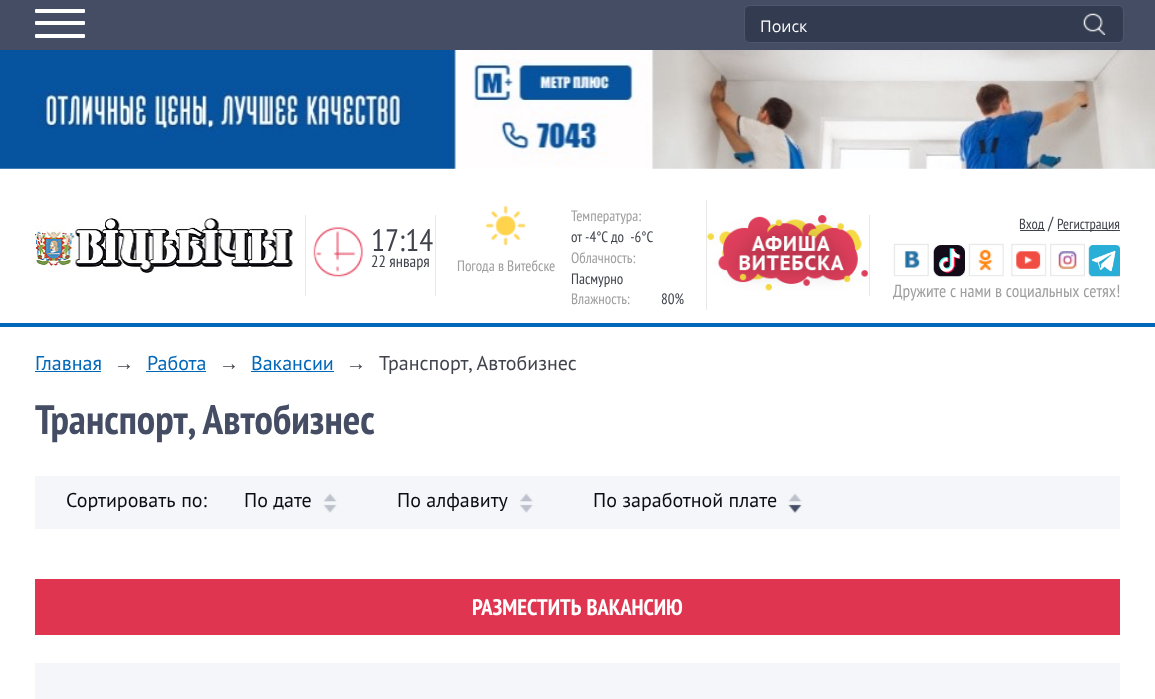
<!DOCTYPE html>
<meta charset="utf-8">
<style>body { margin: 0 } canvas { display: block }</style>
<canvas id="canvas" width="1155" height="699"></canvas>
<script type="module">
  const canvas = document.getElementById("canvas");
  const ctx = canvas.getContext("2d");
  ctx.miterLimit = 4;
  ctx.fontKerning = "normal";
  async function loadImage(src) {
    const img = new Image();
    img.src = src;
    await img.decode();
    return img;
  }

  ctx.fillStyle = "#ffffff";
  ctx.fillRect(0, 0, 1155, 699);
  ctx.fillStyle = "#444d64";
  ctx.fillRect(0, 0, 1155, 50);
  ctx.fillStyle = "#ffffff";
  ctx.beginPath();
  ctx.roundRect(35, 9, 50, 4, 1);
  ctx.fill();
  ctx.beginPath();
  ctx.roundRect(35, 21, 50, 4, 1);
  ctx.fill();
  ctx.beginPath();
  ctx.roundRect(35, 34, 50, 4, 1);
  ctx.fill();
  ctx.fillStyle = "#323b4f";
  ctx.beginPath();
  ctx.roundRect(744.5, 5.5, 379, 37, 5.5);
  ctx.fill();
  ctx.strokeStyle = "#4c566e";
  ctx.stroke();
  ctx.font = "16px Open Sans";
  ctx.fillStyle = "#ffffff";
  ctx.fillText("Поиск", 760, 32);
  ctx.drawImage(await loadImage("img1.png"), 1083, 13, 23, 22);
  ctx.fillStyle = "#0067b9";
  ctx.fillRect(0, 323, 1155, 4);
  ctx.fillStyle = "#e8e8e8";
  ctx.fillRect(305, 215, 1, 81);
  ctx.drawImage(await loadImage("img2.png"), 35, 218, 258, 55);
  ctx.fillRect(435, 215, 1, 81);
  ctx.drawImage(await loadImage("img3.png"), 313, 227, 50, 50);
  ctx.font = "31px PT Sans Narrow";
  ctx.fillStyle = "#40434c";
  ctx.fillText("17:14", 371, 251);
  ctx.font = "16.5px PT Sans Narrow";
  ctx.fillText("22 января", 371, 267);
  ctx.fillStyle = "#e8e8e8";
  ctx.fillRect(706, 200, 1, 110);
  ctx.drawImage(await loadImage("img4.png"), 486, 206, 39, 39);
  ctx.font = "15px PT Sans Narrow";
  ctx.fillStyle = "#9e9e9f";
  ctx.fillText("Погода в Витебске", 457, 271);
  ctx.fillText("Температура:", 571, 221);
  ctx.fillStyle = "#40434c";
  ctx.fillText("от -4°C до  -6°C", 571, 242);
  ctx.fillStyle = "#9e9e9f";
  ctx.fillText("Облачность:", 571, 263);
  ctx.fillStyle = "#40434c";
  ctx.fillText("Пасмурно", 571, 284);
  ctx.fillStyle = "#9e9e9f";
  ctx.fillText("Влажность:", 571, 304);
  ctx.fillStyle = "#40434c";
  ctx.fillText("80%", 661, 304);
  ctx.fillStyle = "#e8e8e8";
  ctx.fillRect(869, 215, 1, 81);
  ctx.drawImage(await loadImage("img5.png"), 707, 215, 162, 76);
  ctx.fillStyle = "#40434c";
  ctx.fillRect(1020, 230, 25, 1);
  ctx.font = "14.5px PT Sans Narrow";
  ctx.fillText("Вход", 1019, 229);
  ctx.font = "17.5px PT Sans Narrow";
  ctx.fillText("/", 1048, 229);
  ctx.fillRect(1058, 230, 62, 1);
  ctx.font = "14.5px PT Sans Narrow";
  ctx.fillText("Регистрация", 1057, 229);
  ctx.drawImage(await loadImage("img6.png"), 893, 243, 36, 34);
  ctx.drawImage(await loadImage("img7.png"), 933, 245, 32, 32);
  ctx.drawImage(await loadImage("img8.png"), 968, 243, 36, 34);
  ctx.drawImage(await loadImage("img9.png"), 1011, 243, 36, 34);
  ctx.drawImage(await loadImage("img10.png"), 1050, 243, 35, 34);
  ctx.drawImage(await loadImage("img11.png"), 1088, 245, 32, 32);
  ctx.font = "17.5px PT Sans Narrow";
  ctx.fillStyle = "#9e9e9f";
  ctx.fillText("Дружите с нами в социальных сетях!", 893, 297);
  ctx.drawImage(await loadImage("img12.png"), 0, 50, 1155, 119);
  ctx.font = "20px PT Sans";
  ctx.fillStyle = "#0067b9";
  ctx.fillText("Главная", 35, 370);
  ctx.fillRect(35, 371, 66, 1);
  ctx.font = "20px Liberation Sans";
  ctx.fillStyle = "#40434c";
  ctx.fillText("→", 114, 370);
  ctx.font = "20px PT Sans";
  ctx.fillStyle = "#0067b9";
  ctx.fillText("Работа", 147, 370);
  ctx.fillRect(146, 371, 60, 1);
  ctx.font = "20px Liberation Sans";
  ctx.fillStyle = "#40434c";
  ctx.fillText("→", 219, 370);
  ctx.font = "20px PT Sans";
  ctx.fillStyle = "#0067b9";
  ctx.fillText("Вакансии", 251, 370);
  ctx.fillRect(251, 371, 83, 1);
  ctx.font = "20px Liberation Sans";
  ctx.fillStyle = "#40434c";
  ctx.fillText("→", 346, 370);
  ctx.wordSpacing = "-1px";
  ctx.font = "20px PT Sans";
  ctx.fillText("Транспорт, Автобизнес", 379, 370);
  ctx.font = "bold 41.25px PT Sans Narrow";
  ctx.fillStyle = "#444d64";
  ctx.fillText("Транспорт, Автобизнес", 35, 434);
  ctx.fillStyle = "#f4f6f9";
  ctx.fillRect(35, 476, 1085, 53);
  ctx.wordSpacing = "1px";
  ctx.font = "20px PT Sans";
  ctx.fillStyle = "#090d13";
  ctx.fillText("Сортировать по:", 66, 507);
  ctx.wordSpacing = "0px";
  ctx.fillText("По дате", 244, 507);
  ctx.drawImage(await loadImage("img13.png"), 323, 493, 14, 20);
  ctx.fillText("По алфавиту", 397, 507);
  ctx.drawImage(await loadImage("img14.png"), 520, 493, 13, 20);
  ctx.fillText("По заработной плате", 593, 507);
  ctx.drawImage(await loadImage("img15.png"), 788, 493, 14, 20);
  ctx.fillStyle = "#df3551";
  ctx.fillRect(35, 579, 1085, 56);
  ctx.wordSpacing = "1px";
  ctx.font = "bold 22.5px PT Sans Narrow";
  ctx.fillStyle = "#ffffff";
  ctx.fillText("РАЗМЕСТИТЬ ВАКАНСИЮ", 472, 615);
  ctx.fillStyle = "#f4f6f9";
  ctx.fillRect(35, 663, 1085, 36);
</script>
